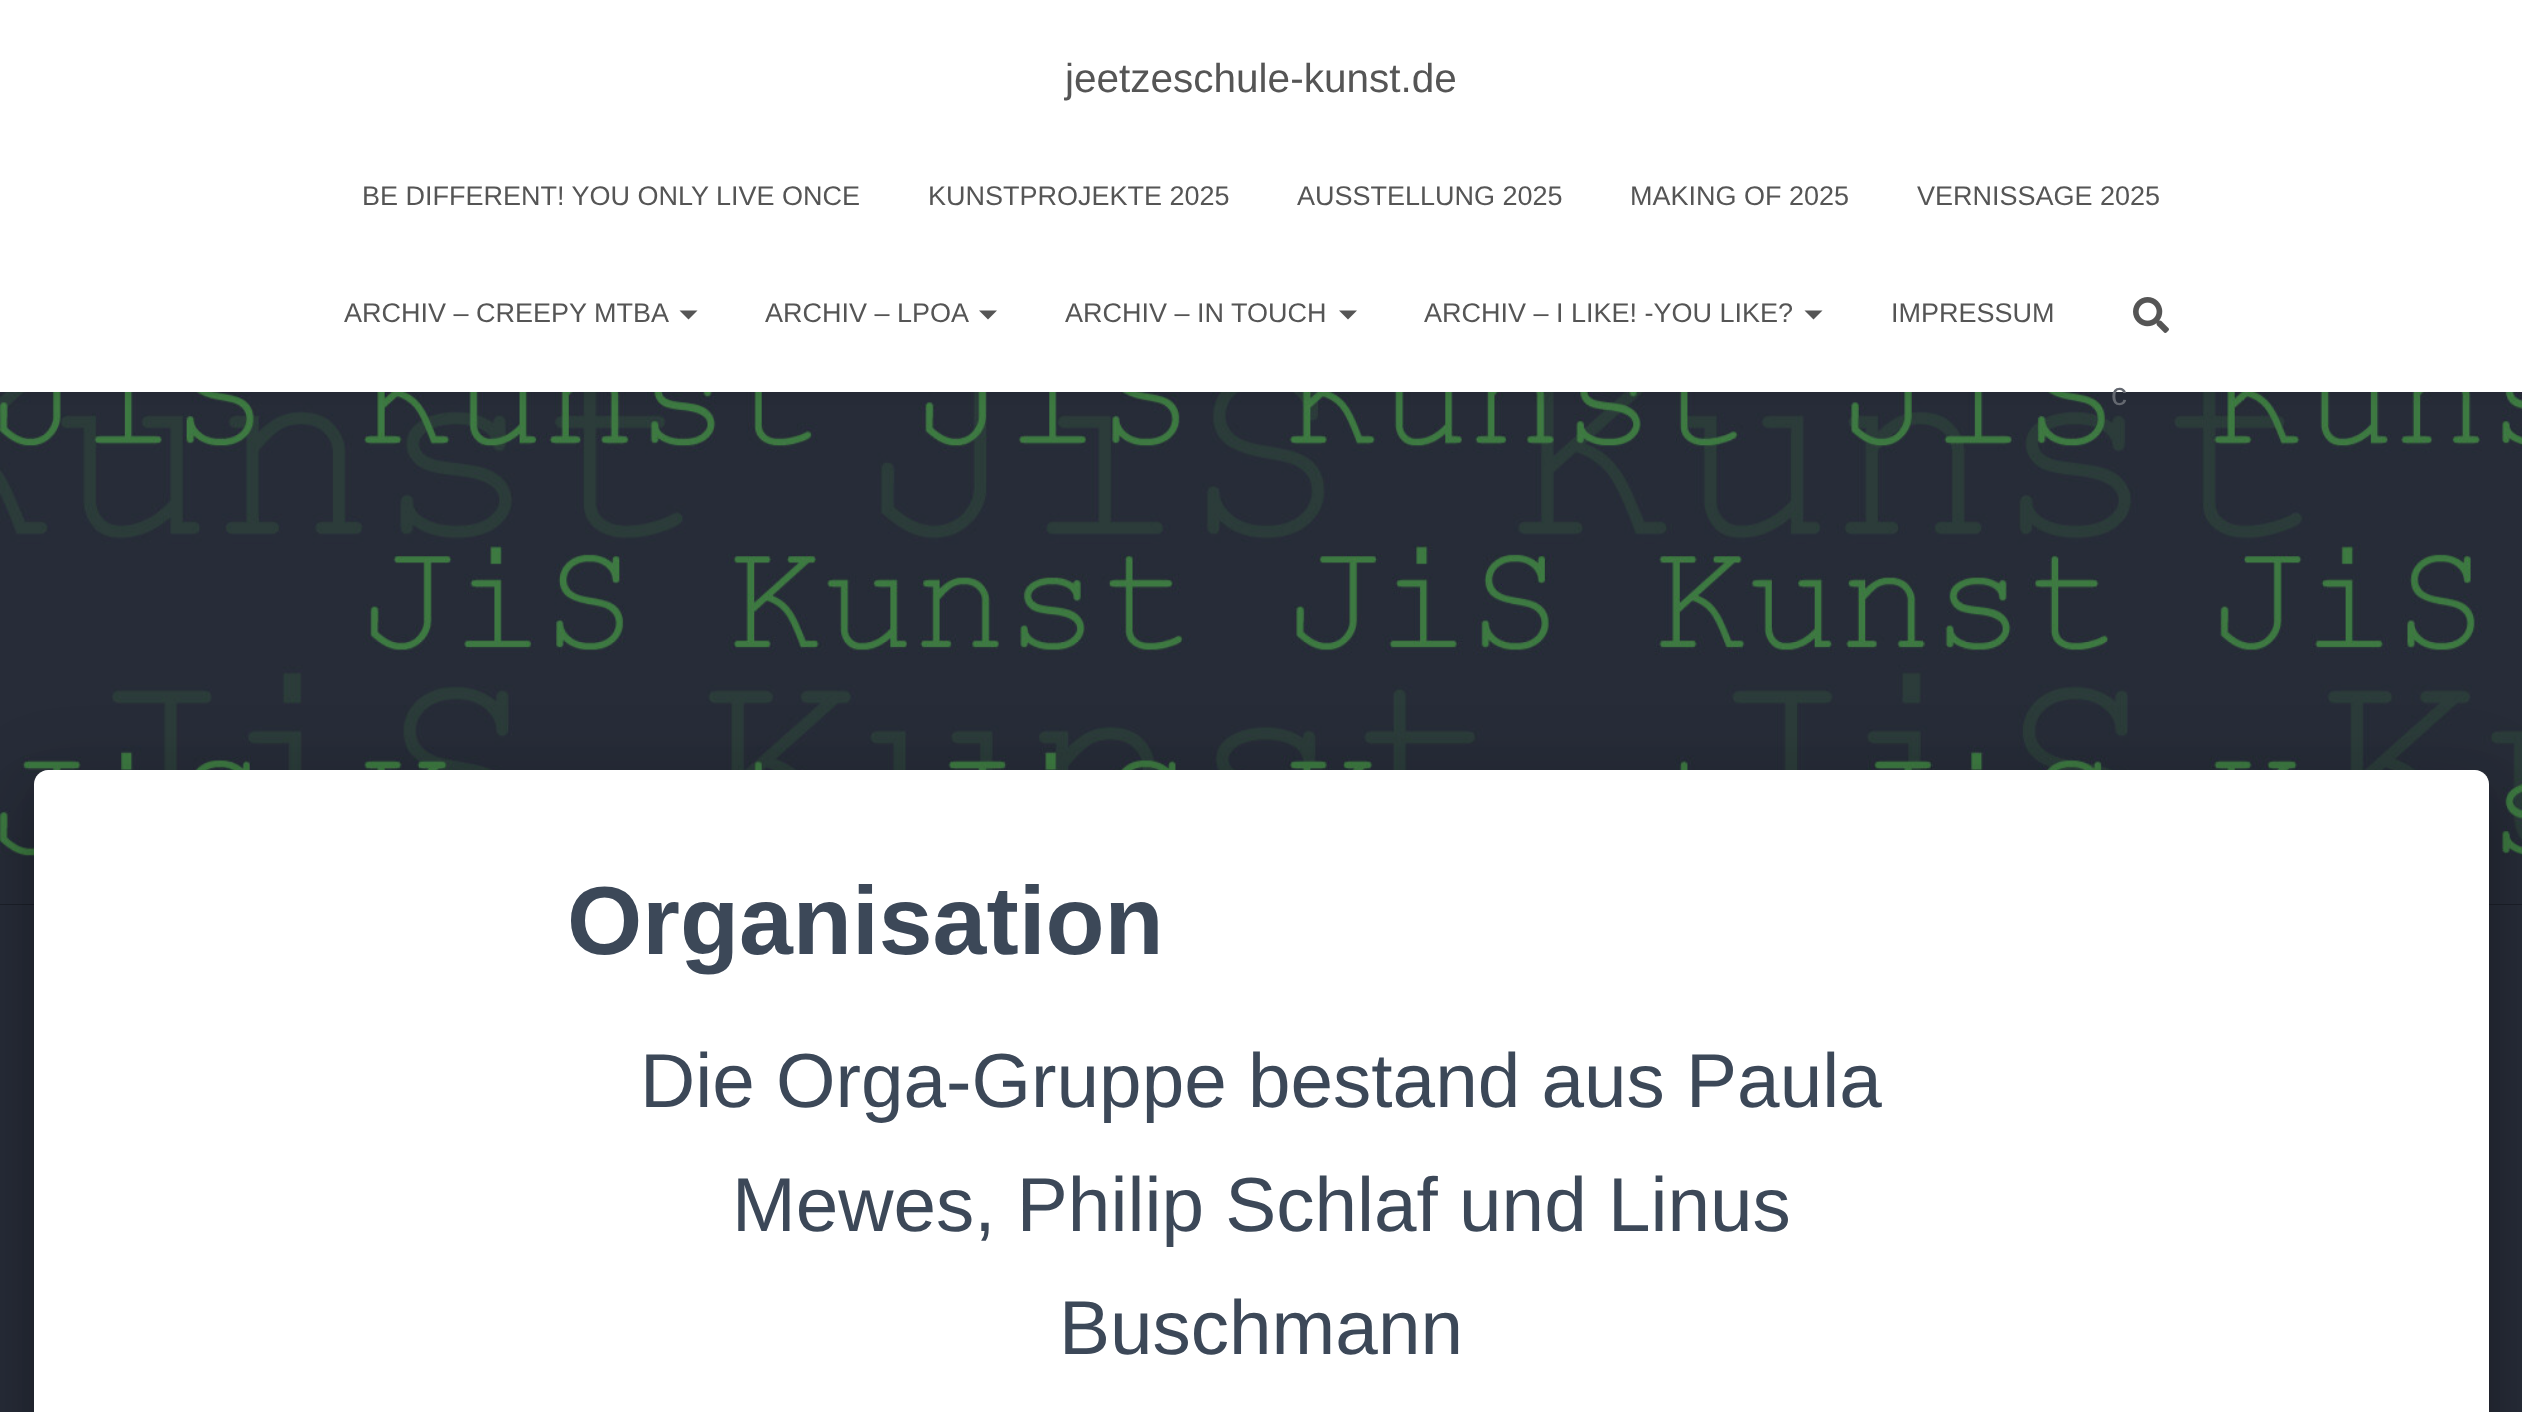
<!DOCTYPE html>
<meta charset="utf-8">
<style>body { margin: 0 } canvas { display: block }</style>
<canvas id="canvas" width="2522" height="1412"></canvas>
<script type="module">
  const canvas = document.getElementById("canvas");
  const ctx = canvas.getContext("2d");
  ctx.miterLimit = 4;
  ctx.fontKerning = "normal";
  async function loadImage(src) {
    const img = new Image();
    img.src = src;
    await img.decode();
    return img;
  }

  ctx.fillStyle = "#272c38";
  ctx.fillRect(0, 0, 2522, 1412);
  ctx.fillStyle = "#14161c";
  ctx.fillRect(0, 904, 2522, 1);
  ctx.drawImage(await loadImage("img2.png"), 0, 392, 2522, 513);
  ctx.fillStyle = "rgba(0, 0, 0, 0.42)";
  ctx.filter = "blur(11px)";
  ctx.beginPath();
  ctx.rect(14, 16, 2495, 364);
  ctx.fill();
  ctx.filter = "none";
  ctx.fillStyle = "#ffffff";
  ctx.fillRect(0, 0, 2522, 392);
  ctx.font = "40.5px Liberation Sans";
  ctx.fillStyle = "#555555";
  ctx.fillText("jeetzeschule-kunst.de", 1065, 92);
  ctx.font = "27px Liberation Sans";
  ctx.fillText("BE DIFFERENT! YOU ONLY LIVE ONCE", 362, 205);
  ctx.fillText("KUNSTPROJEKTE 2025", 928, 205);
  ctx.fillText("AUSSTELLUNG 2025", 1297, 205);
  ctx.fillText("MAKING OF 2025", 1630, 205);
  ctx.fillText("VERNISSAGE 2025", 1917, 205);
  ctx.fillText("ARCHIV – CREEPY MTBA", 344, 322);
  ctx.beginPath();
  ctx.moveTo(679.5, 310.5);
  ctx.lineTo(697.5, 310.5);
  ctx.lineTo(688.5, 319.5);
  ctx.closePath();
  ctx.fill();
  ctx.fillText("ARCHIV – LPOA", 765, 322);
  ctx.beginPath();
  ctx.moveTo(979, 310.5);
  ctx.lineTo(997, 310.5);
  ctx.lineTo(988, 319.5);
  ctx.closePath();
  ctx.fill();
  ctx.fillText("ARCHIV – IN TOUCH", 1065, 322);
  ctx.beginPath();
  ctx.moveTo(1339, 310.5);
  ctx.lineTo(1357, 310.5);
  ctx.lineTo(1348, 319.5);
  ctx.closePath();
  ctx.fill();
  ctx.fillText("ARCHIV – I LIKE! -YOU LIKE?", 1424, 322);
  ctx.beginPath();
  ctx.moveTo(1804.5, 310.5);
  ctx.lineTo(1822.5, 310.5);
  ctx.lineTo(1813.5, 319.5);
  ctx.closePath();
  ctx.fill();
  ctx.fillText("IMPRESSUM", 1891, 322);
  ctx.drawImage(await loadImage("img1.png"), 2133, 297, 36, 36);
  ctx.font = "32px Liberation Sans";
  ctx.fillStyle = "#646870";
  ctx.fillText("c", 2111, 405);
  ctx.fillStyle = "rgba(0, 0, 0, 0.2)";
  ctx.filter = "blur(11px)";
  ctx.beginPath();
  ctx.roundRect(45, 799, 2432, 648, 2);
  ctx.fill();
  ctx.filter = "none";
  ctx.fillStyle = "rgba(0, 0, 0, 0.12)";
  ctx.filter = "blur(34px)";
  ctx.beginPath();
  ctx.roundRect(23, 772, 2477, 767, 25);
  ctx.fill();
  ctx.filter = "none";
  ctx.fillStyle = "rgba(0, 0, 0, 0.14)";
  ctx.filter = "blur(27px)";
  ctx.beginPath();
  ctx.roundRect(29, 801, 2464, 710, 18);
  ctx.fill();
  ctx.filter = "none";
  ctx.fillStyle = "#ffffff";
  ctx.beginPath();
  ctx.moveTo(48, 770);
  ctx.lineTo(2475, 770);
  ctx.bezierCurveTo(2482.5, 770, 2489, 776.5, 2489, 784);
  ctx.lineTo(2489, 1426);
  ctx.lineTo(34, 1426);
  ctx.lineTo(34, 784);
  ctx.bezierCurveTo(34, 776.5, 40.5, 770, 48, 770);
  ctx.closePath();
  ctx.fill();
  ctx.font = "bold 96.75px Liberation Sans";
  ctx.fillStyle = "#3c4858";
  ctx.fillText("Organisation", 567, 954);
  ctx.font = "76.5px Liberation Sans";
  ctx.fillText("Die Orga-Gruppe bestand aus Paula", 640, 1107);
  ctx.fillText("Mewes, Philip Schlaf und Linus", 732, 1231);
  ctx.fillText("Buschmann", 1059, 1354);
</script>
